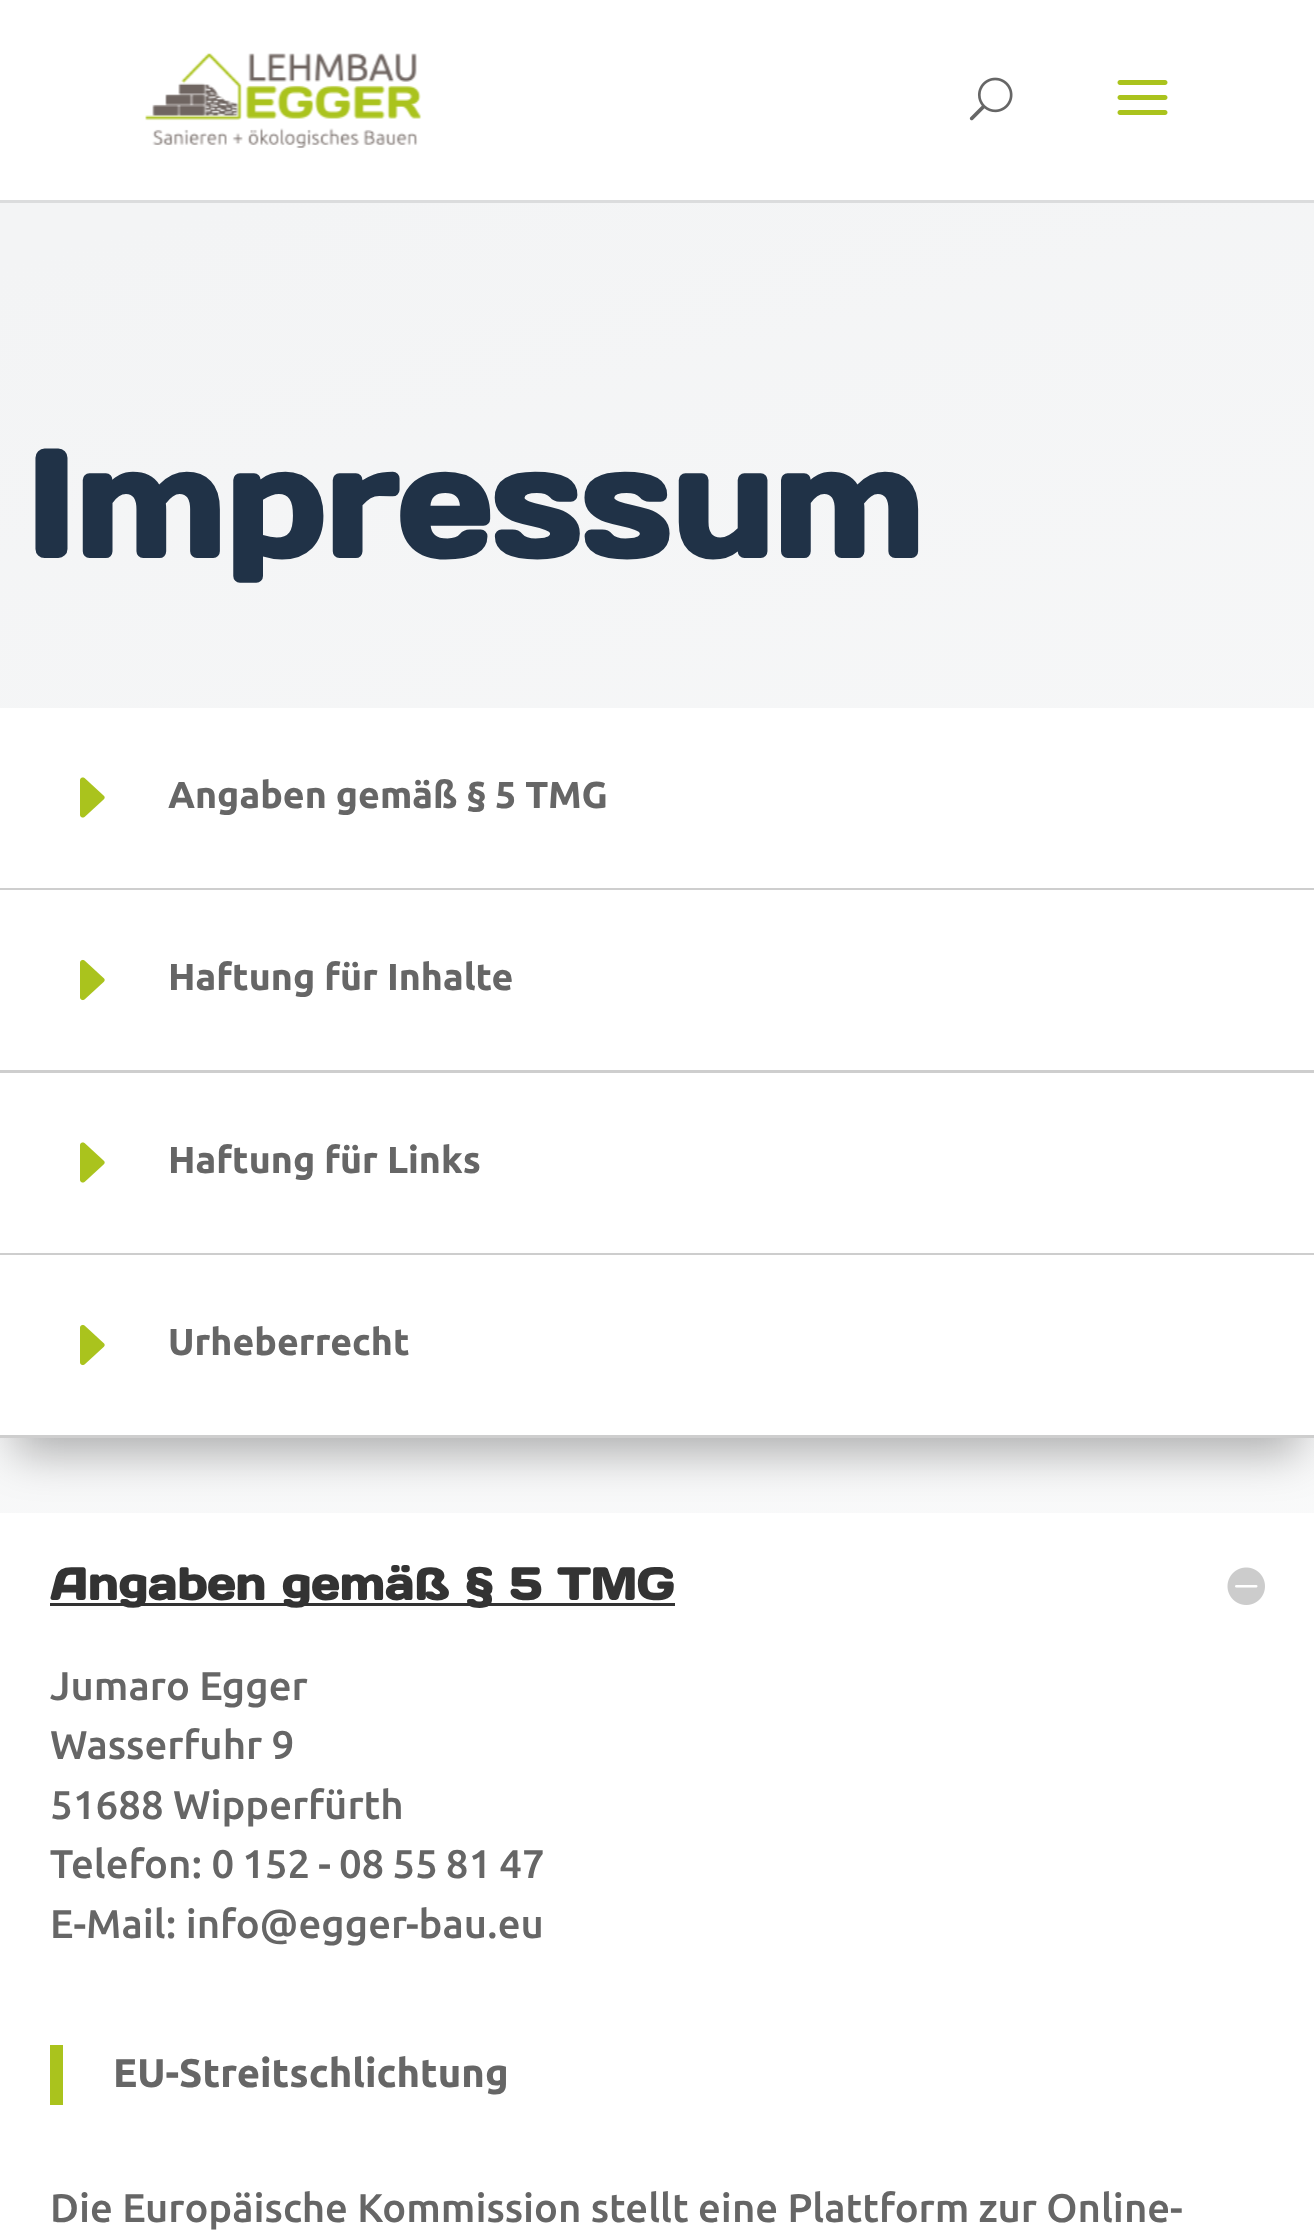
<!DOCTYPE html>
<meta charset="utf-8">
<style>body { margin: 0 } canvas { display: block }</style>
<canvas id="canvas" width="1314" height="2240"></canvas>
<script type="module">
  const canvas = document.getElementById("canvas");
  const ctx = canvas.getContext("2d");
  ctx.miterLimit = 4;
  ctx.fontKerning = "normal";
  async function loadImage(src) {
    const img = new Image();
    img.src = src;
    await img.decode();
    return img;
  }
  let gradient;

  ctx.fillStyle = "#ffffff";
  ctx.fillRect(0, 0, 1314, 2240);
  ctx.fillStyle = "#dbdcdd";
  ctx.fillRect(0, 200, 1314, 3);
  ctx.drawImage(await loadImage("img1.png"), 145, 53, 277, 95);
  ctx.drawImage(await loadImage("img2.png"), 969, 77, 44, 44);
  ctx.drawImage(await loadImage("img3.png"), 1117, 80, 51, 35);
  gradient = ctx.createLinearGradient(-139, 235, 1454, 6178);
  gradient.addColorStop(0.01, "#f3f4f5");
  gradient.addColorStop(0.54, "#ffffff");
  ctx.fillStyle = gradient;
  ctx.fillRect(0, 203, 1314, 1310);
  ctx.font = "bold 150px Days One";
  ctx.fillStyle = "#203247";
  ctx.fillText("Impressum", 25, 558);
  ctx.fillStyle = "#ffffff";
  ctx.fillRect(0, 708, 1314, 362);
  ctx.fillStyle = "rgba(51, 51, 51, 0.24)";
  ctx.fillRect(0, 888, 1314, 2);
  ctx.drawImage(await loadImage("img4.png"), 80, 777, 25, 41);
  ctx.font = "bold 37.5px Ubuntu";
  ctx.fillStyle = "#666666";
  ctx.fillText("Angaben gemäß § 5 TMG", 168, 808);
  ctx.fillStyle = "#cecece";
  ctx.fillRect(0, 1070, 1314, 3);
  ctx.drawImage(await loadImage("img5.png"), 80, 959, 25, 42);
  ctx.fillStyle = "#666666";
  ctx.fillText("Haftung für Inhalte", 168, 990);
  ctx.fillStyle = "#ffffff";
  ctx.fillRect(0, 1073, 1314, 182);
  ctx.fillStyle = "rgba(51, 51, 51, 0.24)";
  ctx.fillRect(0, 1253, 1314, 2);
  ctx.drawImage(await loadImage("img4.png"), 80, 1142, 25, 41);
  ctx.fillStyle = "#666666";
  ctx.fillText("Haftung für Links", 168, 1173);
  ctx.fillStyle = "rgba(0, 0, 0, 0.3)";
  ctx.filter = "blur(22.5px)";
  ctx.beginPath();
  ctx.rect(15, 1300, 1285, 153);
  ctx.fill();
  ctx.filter = "none";
  ctx.fillStyle = "#ffffff";
  ctx.fillRect(0, 1255, 1314, 180);
  ctx.fillStyle = "#cecece";
  ctx.fillRect(0, 1435, 1314, 3);
  ctx.drawImage(await loadImage("img5.png"), 80, 1324, 25, 42);
  ctx.fillStyle = "#666666";
  ctx.fillText("Urheberrecht", 168, 1355);
  ctx.fillStyle = "#333333";
  ctx.fillRect(50, 1603, 625, 3);
  ctx.font = "bold 45px Days One";
  ctx.fillText("Angaben gemäß § 5 TMG", 50, 1600);
  ctx.drawImage(await loadImage("img6.png"), 1227, 1567, 38, 38);
  ctx.font = "500 40px Ubuntu";
  ctx.fillStyle = "#666666";
  ctx.fillText("Jumaro Egger", 50, 1700);
  ctx.fillText("Wasserfuhr 9", 50, 1759);
  ctx.fillText("51688 Wipperfürth", 50, 1819);
  ctx.fillText("Telefon: 0 152 - 08 55 81 47", 50, 1878);
  ctx.fillText("E-Mail: info@egger-bau.eu", 50, 1938);
  ctx.fillStyle = "#aac31d";
  ctx.fillRect(50, 2045, 13, 60);
  ctx.font = "bold 40px Ubuntu";
  ctx.fillStyle = "#666666";
  ctx.fillText("EU-Streitschlichtung", 113, 2087);
  ctx.font = "500 40px Ubuntu";
  ctx.fillText("Die Europäische Kommission stellt eine Plattform zur Online-", 50, 2222);
</script>
